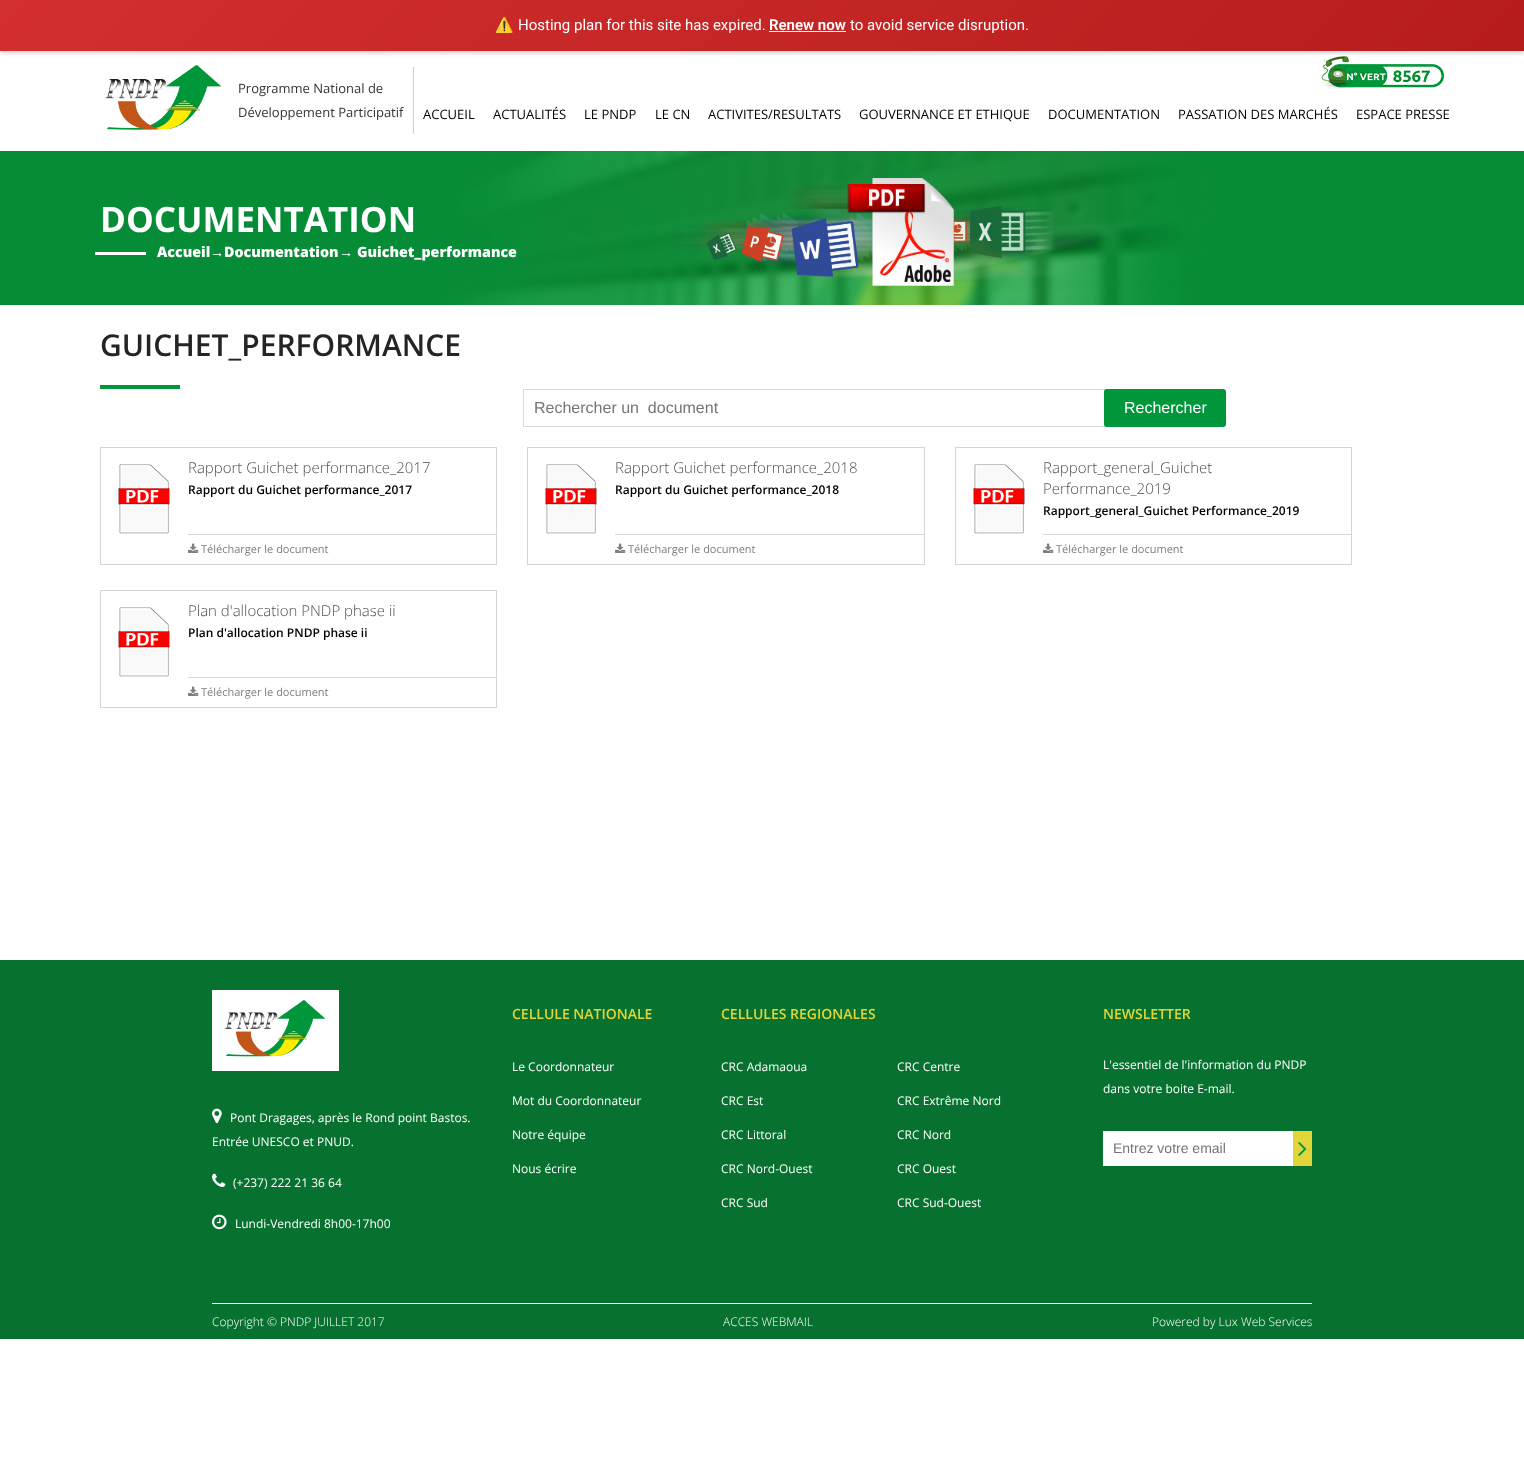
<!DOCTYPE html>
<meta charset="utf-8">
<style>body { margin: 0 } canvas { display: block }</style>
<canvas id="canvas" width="1524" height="1481"></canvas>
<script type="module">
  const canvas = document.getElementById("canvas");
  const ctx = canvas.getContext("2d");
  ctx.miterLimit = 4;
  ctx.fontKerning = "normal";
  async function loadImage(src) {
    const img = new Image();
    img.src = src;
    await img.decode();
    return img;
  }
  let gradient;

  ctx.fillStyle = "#ffffff";
  ctx.fillRect(0, 0, 1524, 1481);
  ctx.drawImage(await loadImage("img2.png"), 1321, 56, 123, 33);
  ctx.fillStyle = "rgba(0, 0, 0, 0.2)";
  ctx.filter = "blur(2px)";
  ctx.beginPath();
  ctx.rect(0, 2, 1524, 51);
  ctx.fill();
  ctx.filter = "none";
  gradient = ctx.createLinearGradient(368, -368, 1156, 419);
  gradient.addColorStop(0, "#d32f2f");
  gradient.addColorStop(1, "#b71c1c");
  ctx.fillStyle = gradient;
  ctx.fillRect(0, 0, 1524, 51);
  ctx.font = "15px Noto Color Emoji";
  ctx.fillStyle = "#ffffff";
  ctx.fillText("⚠️", 495, 30);
  ctx.font = "15px Roboto";
  ctx.fillText("Hosting plan for this site has expired.", 518, 30);
  ctx.font = "600 15px Roboto";
  ctx.fillText("Renew now", 769, 30);
  ctx.fillRect(769, 31, 77, 1);
  ctx.font = "15px Roboto";
  ctx.fillText("to avoid service disruption.", 850, 30);
  ctx.drawImage(await loadImage("img1.png"), 105, 64, 116, 66);
  ctx.fillStyle = "#cccccc";
  ctx.fillRect(413, 67, 1, 67);
  ctx.font = "13px Open Sans";
  ctx.fillStyle = "#333333";
  ctx.fillText("Programme National de", 238, 93);
  ctx.fillText("Développement Participatif", 238, 117);
  ctx.fillStyle = "#000000";
  ctx.fillText("ACCUEIL", 423, 119);
  ctx.fillText("ACTUALITÉS", 493, 119);
  ctx.fillText("LE PNDP", 584, 119);
  ctx.fillText("LE CN", 655, 119);
  ctx.fillText("ACTIVITES/RESULTATS", 708, 119);
  ctx.fillText("GOUVERNANCE ET ETHIQUE", 859, 119);
  ctx.fillText("DOCUMENTATION", 1048, 119);
  ctx.fillText("PASSATION DES MARCHÉS", 1178, 119);
  ctx.fillText("ESPACE PRESSE", 1356, 119);
  ctx.drawImage(await loadImage("img3.png"), 0, 151, 1524, 154);
  ctx.font = "bold 35px Open Sans";
  ctx.fillStyle = "#ffffff";
  ctx.fillText("DOCUMENTATION", 100, 232);
  ctx.fillRect(95, 252, 51, 3);
  ctx.font = "800 14.25px Open Sans";
  ctx.fillText("Accueil", 157, 257);
  ctx.font = "bold 14.25px Liberation Sans";
  ctx.fillText("→", 210, 257);
  ctx.font = "800 14.25px Open Sans";
  ctx.fillText("Documentation", 224, 257);
  ctx.font = "bold 14.25px Liberation Sans";
  ctx.fillText("→", 339, 257);
  ctx.font = "800 14.25px Open Sans";
  ctx.fillText("Guichet_performance", 357, 257);
  ctx.font = "600 30px Open Sans";
  ctx.fillStyle = "#242424";
  ctx.fillText("GUICHET_PERFORMANCE", 100, 356);
  ctx.fillStyle = "#00973a";
  ctx.fillRect(100, 385, 80, 4);
  ctx.strokeStyle = "#d8d8d8";
  ctx.strokeRect(523.5, 389.5, 584, 37);
  ctx.font = "16px Liberation Sans";
  ctx.fillStyle = "#757575";
  ctx.fillText("Rechercher un  document", 534, 413);
  ctx.fillStyle = "#00973a";
  ctx.beginPath();
  ctx.roundRect(1104, 389, 122, 38, 3);
  ctx.fill();
  ctx.fillStyle = "#ffffff";
  ctx.fillText("Rechercher", 1124, 413);
  ctx.strokeStyle = "#d5d5d5";
  ctx.strokeRect(100.5, 447.5, 396, 117);
  ctx.drawImage(await loadImage("img4.png"), 118, 464, 52, 70);
  ctx.font = "300 15px Open Sans";
  ctx.fillStyle = "#4f4f4f";
  ctx.fillText("Rapport Guichet performance_2017", 188, 473);
  ctx.font = "600 12px Open Sans";
  ctx.fillStyle = "#000000";
  ctx.fillText("Rapport du Guichet performance_2017", 188, 494);
  ctx.fillStyle = "#d8d8d8";
  ctx.fillRect(188, 534, 309, 1);
  ctx.drawImage(await loadImage("img5.png"), 188, 543, 11, 10);
  ctx.font = "11px Open Sans";
  ctx.fillStyle = "#7e7e7e";
  ctx.fillText("Télécharger le document", 201, 553);
  ctx.strokeRect(527.5, 447.5, 397, 117);
  ctx.drawImage(await loadImage("img4.png"), 545, 464, 52, 70);
  ctx.font = "300 15px Open Sans";
  ctx.fillStyle = "#4f4f4f";
  ctx.fillText("Rapport Guichet performance_2018", 615, 473);
  ctx.font = "600 12px Open Sans";
  ctx.fillStyle = "#000000";
  ctx.fillText("Rapport du Guichet performance_2018", 615, 494);
  ctx.fillStyle = "#d8d8d8";
  ctx.fillRect(615, 534, 310, 1);
  ctx.drawImage(await loadImage("img5.png"), 615, 543, 11, 10);
  ctx.font = "11px Open Sans";
  ctx.fillStyle = "#7e7e7e";
  ctx.fillText("Télécharger le document", 628, 553);
  ctx.strokeRect(955.5, 447.5, 396, 117);
  ctx.drawImage(await loadImage("img4.png"), 973, 464, 52, 70);
  ctx.font = "300 15px Open Sans";
  ctx.fillStyle = "#4f4f4f";
  ctx.fillText("Rapport_general_Guichet", 1043, 473);
  ctx.fillText("Performance_2019", 1043, 494);
  ctx.font = "600 12px Open Sans";
  ctx.fillStyle = "#000000";
  ctx.fillText("Rapport_general_Guichet Performance_2019", 1043, 515);
  ctx.fillStyle = "#d8d8d8";
  ctx.fillRect(1043, 534, 309, 1);
  ctx.drawImage(await loadImage("img5.png"), 1043, 543, 11, 10);
  ctx.font = "11px Open Sans";
  ctx.fillStyle = "#7e7e7e";
  ctx.fillText("Télécharger le document", 1056, 553);
  ctx.strokeRect(100.5, 590.5, 396, 117);
  ctx.drawImage(await loadImage("img4.png"), 118, 607, 52, 70);
  ctx.font = "300 15px Open Sans";
  ctx.fillStyle = "#4f4f4f";
  ctx.fillText("Plan d'allocation PNDP phase ii", 188, 616);
  ctx.font = "600 12px Open Sans";
  ctx.fillStyle = "#000000";
  ctx.fillText("Plan d'allocation PNDP phase ii", 188, 637);
  ctx.fillStyle = "#d8d8d8";
  ctx.fillRect(188, 677, 309, 1);
  ctx.drawImage(await loadImage("img5.png"), 188, 686, 11, 10);
  ctx.font = "11px Open Sans";
  ctx.fillStyle = "#7e7e7e";
  ctx.fillText("Télécharger le document", 201, 696);
  ctx.fillStyle = "#077230";
  ctx.fillRect(0, 960, 1524, 379);
  ctx.fillStyle = "#ffffff";
  ctx.fillRect(212, 1303, 1100, 1);
  ctx.font = "600 14px Open Sans";
  ctx.fillStyle = "#e1d53a";
  ctx.fillText("CELLULE NATIONALE", 512, 1019);
  ctx.font = "12px Open Sans";
  ctx.fillStyle = "#ffffff";
  ctx.fillText("Le Coordonnateur", 512, 1071);
  ctx.fillText("Mot du Coordonnateur", 512, 1105);
  ctx.fillText("Notre équipe", 512, 1139);
  ctx.fillText("Nous écrire", 512, 1173);
  ctx.font = "600 14px Open Sans";
  ctx.fillStyle = "#e1d53a";
  ctx.fillText("CELLULES REGIONALES", 721, 1019);
  ctx.font = "12px Open Sans";
  ctx.fillStyle = "#ffffff";
  ctx.fillText("CRC Adamaoua", 721, 1071);
  ctx.fillText("CRC Centre", 897, 1071);
  ctx.fillText("CRC Est", 721, 1105);
  ctx.fillText("CRC Extrême Nord", 897, 1105);
  ctx.fillText("CRC Littoral", 721, 1139);
  ctx.fillText("CRC Nord", 897, 1139);
  ctx.fillText("CRC Nord-Ouest", 721, 1173);
  ctx.fillText("CRC Ouest", 897, 1173);
  ctx.fillText("CRC Sud", 721, 1207);
  ctx.fillText("CRC Sud-Ouest", 897, 1207);
  ctx.font = "600 14px Open Sans";
  ctx.fillStyle = "#e1d53a";
  ctx.fillText("NEWSLETTER", 1103, 1019);
  ctx.font = "12px Open Sans";
  ctx.fillStyle = "#ffffff";
  ctx.fillText("L'essentiel de l'information du PNDP", 1103, 1069);
  ctx.fillText("dans votre boite E-mail.", 1103, 1093);
  ctx.fillRect(1103, 1131, 190, 35);
  ctx.font = "14px Liberation Sans";
  ctx.fillStyle = "#757575";
  ctx.fillText("Entrez votre email", 1113, 1153);
  ctx.fillStyle = "#e1d53a";
  ctx.fillRect(1293, 1131, 19, 35);
  ctx.drawImage(await loadImage("img6.png"), 1298, 1142, 9, 14);
  ctx.fillStyle = "#ffffff";
  ctx.fillRect(212, 990, 127, 81);
  ctx.drawImage(await loadImage("img7.png"), 225, 1000, 101, 57);
  ctx.drawImage(await loadImage("img8.png"), 212, 1108, 10, 16);
  ctx.font = "12px Open Sans";
  ctx.fillText("Pont Dragages, après le Rond point Bastos.", 230, 1122);
  ctx.fillText("Entrée UNESCO et PNUD.", 212, 1146);
  ctx.drawImage(await loadImage("img9.png"), 212, 1173, 14, 14);
  ctx.fillText("(+237) 222 21 36 64", 233, 1187);
  ctx.drawImage(await loadImage("img10.png"), 212, 1214, 15, 16);
  ctx.fillText("Lundi-Vendredi 8h00-17h00", 235, 1228);
  ctx.font = "300 12px Open Sans";
  ctx.fillText("Copyright © PNDP JUILLET 2017", 212, 1326);
  ctx.fillText("ACCES WEBMAIL", 723, 1326);
  ctx.fillText("Powered by Lux Web Services", 1152, 1326);
</script>
